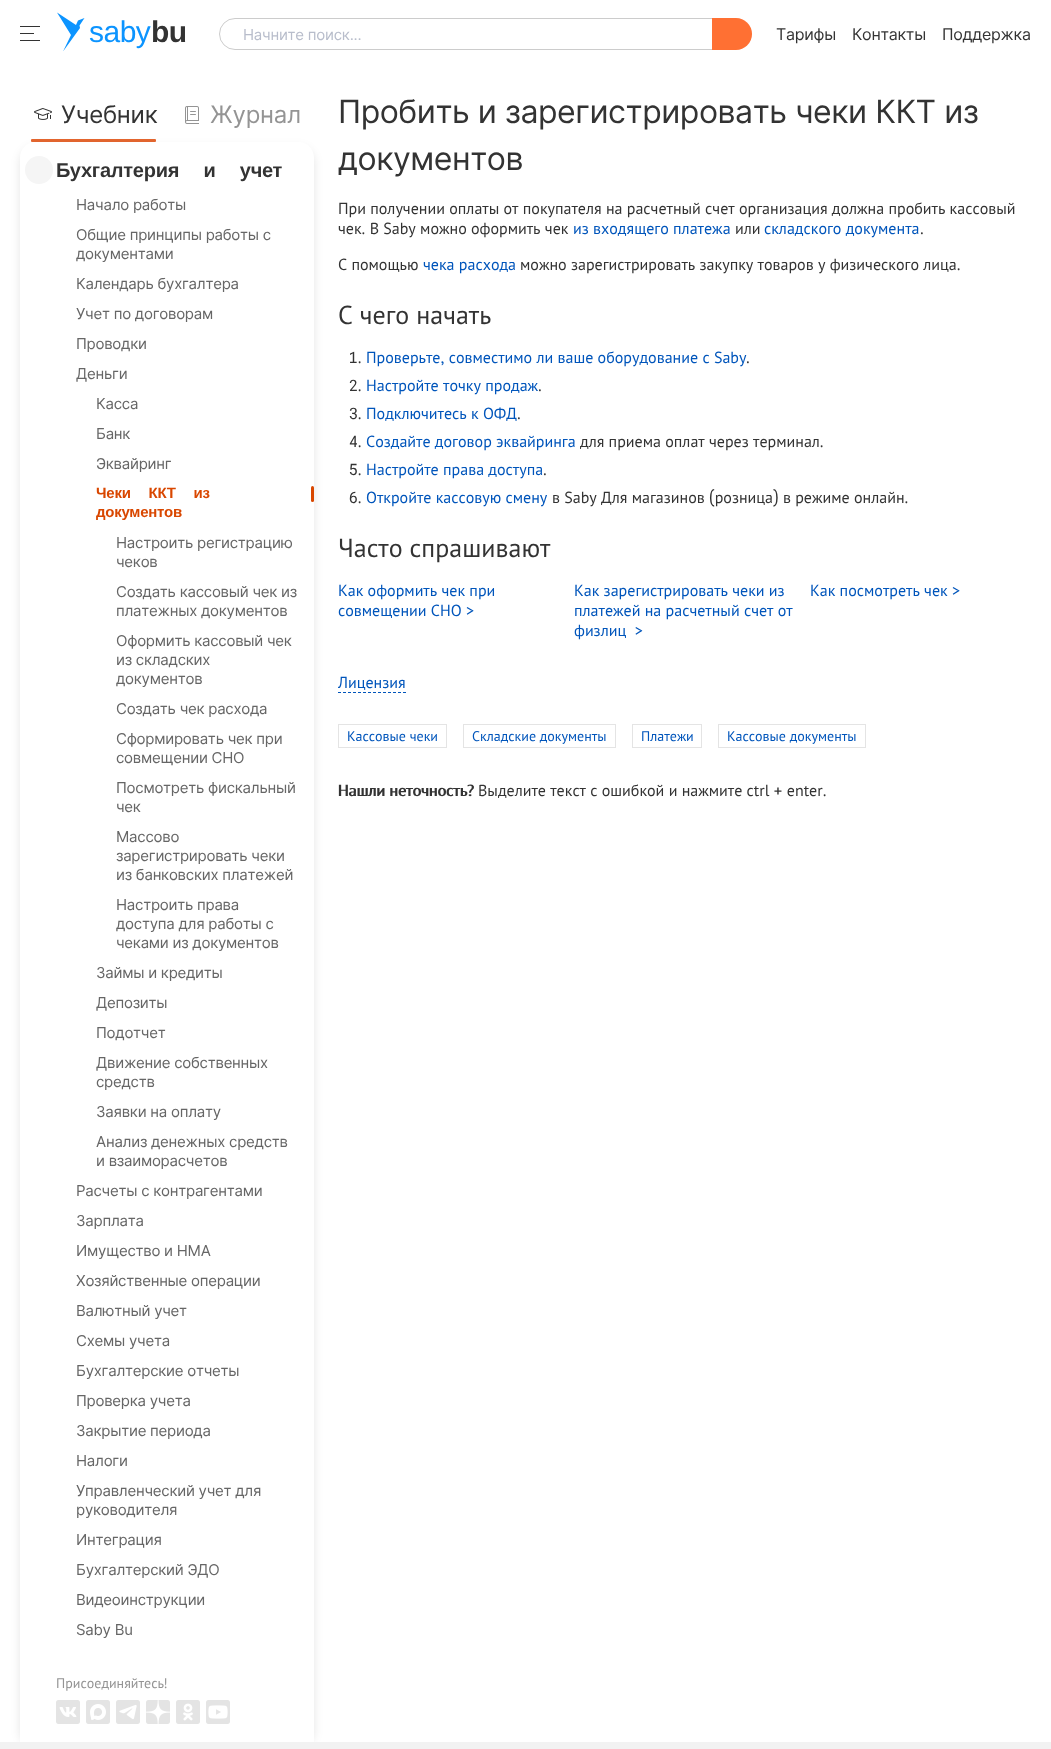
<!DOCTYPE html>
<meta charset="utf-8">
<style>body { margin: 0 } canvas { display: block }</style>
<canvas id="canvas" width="1051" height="1749"></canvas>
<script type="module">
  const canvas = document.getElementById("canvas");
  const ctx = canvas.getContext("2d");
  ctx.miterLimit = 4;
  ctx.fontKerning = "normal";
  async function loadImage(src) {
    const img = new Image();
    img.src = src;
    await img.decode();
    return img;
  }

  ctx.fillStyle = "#ffffff";
  ctx.fillRect(0, 0, 1051, 1749);
  ctx.fillStyle = "#333333";
  ctx.fillRect(20, 26, 20, 1);
  ctx.fillRect(20, 33, 14, 1);
  ctx.fillRect(20, 40, 20, 1);
  ctx.fillStyle = "#0c94ff";
  ctx.beginPath();
  ctx.moveTo(71, 35);
  ctx.lineTo(63, 51.5);
  ctx.lineTo(80, 28);
  ctx.lineTo(79.5, 25.5);
  ctx.lineTo(84.5, 18);
  ctx.lineTo(78, 20.5);
  ctx.lineTo(78, 21);
  ctx.lineTo(78, 20.5);
  ctx.lineTo(76, 25);
  ctx.lineTo(57, 12.5);
  ctx.closePath();
  ctx.fill();
  ctx.letterSpacing = "-0.5px";
  ctx.font = "30px Liberation Sans";
  ctx.fillText("saby", 89, 42);
  ctx.font = "bold 30px Liberation Sans";
  ctx.fillStyle = "#333333";
  ctx.fillText("bu", 151, 42);
  ctx.beginPath();
  ctx.roundRect(219.5, 18.5, 524, 31, 15.5);
  ctx.strokeStyle = "#cccccc";
  ctx.stroke();
  ctx.letterSpacing = "-0.25px";
  ctx.font = "15px Inter";
  ctx.fillStyle = "#b8bdcb";
  ctx.fillText("Начните поиск...", 243, 40);
  ctx.fillStyle = "#ff7033";
  ctx.beginPath();
  ctx.roundRect(712, 18, 40, 32, [0, 16, 16, 0]);
  ctx.fill();
  ctx.font = "16px Inter";
  ctx.fillStyle = "#333333";
  ctx.fillText("Тарифы", 776, 40);
  ctx.fillText("Контакты", 852, 40);
  ctx.fillText("Поддержка", 942, 40);
  ctx.drawImage(await loadImage("img1.png"), 34, 108, 18, 12);
  ctx.font = "24px Inter";
  ctx.fillText("Учебник", 61, 123);
  ctx.fillStyle = "#e4662f";
  ctx.beginPath();
  ctx.roundRect(31, 139, 125, 3, 1);
  ctx.fill();
  ctx.drawImage(await loadImage("img2.png"), 185, 106, 14, 18);
  ctx.fillStyle = "#949494";
  ctx.fillText("Журнал", 210, 123);
  ctx.save();
  ctx.beginPath();
  ctx.moveTo(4, 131);
  ctx.lineTo(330, 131);
  ctx.lineTo(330, 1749);
  ctx.lineTo(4, 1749);
  ctx.closePath();
  ctx.moveTo(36, 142);
  ctx.lineTo(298, 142);
  ctx.bezierCurveTo(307, 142, 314, 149, 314, 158);
  ctx.lineTo(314, 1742);
  ctx.lineTo(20, 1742);
  ctx.lineTo(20, 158);
  ctx.bezierCurveTo(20, 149, 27, 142, 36, 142);
  ctx.closePath();
  ctx.clip("evenodd");
  ctx.fillStyle = "rgba(0, 0, 0, 0.1)";
  ctx.filter = "blur(5px)";
  ctx.beginPath();
  ctx.roundRect(20, 147, 294, 1600, 16);
  ctx.fill();
  ctx.filter = "none";
  ctx.restore();
  ctx.fillStyle = "#f5f5f5";
  ctx.beginPath();
  ctx.arc(39, 170, 14, 0, Math.PI * 2);
  ctx.fill();
  ctx.wordSpacing = "19px";
  ctx.font = "bold 20px Liberation Sans";
  ctx.fillStyle = "#333333";
  ctx.fillText("Бухгалтерия и учет", 56, 177);
  ctx.wordSpacing = "0px";
  ctx.font = "15px Inter";
  ctx.fillStyle = "#666666";
  ctx.fillText("Начало работы", 76, 210);
  ctx.fillText("Общие принципы работы с", 76, 240);
  ctx.fillText("документами", 76, 259);
  ctx.fillText("Календарь бухгалтера", 76, 289);
  ctx.fillText("Учет по договорам", 76, 319);
  ctx.fillText("Проводки", 76, 349);
  ctx.fillText("Деньги", 76, 379);
  ctx.fillText("Касса", 96, 409);
  ctx.fillText("Банк", 96, 439);
  ctx.fillText("Эквайринг", 96, 469);
  ctx.wordSpacing = "14px";
  ctx.font = "bold 15px Liberation Sans";
  ctx.fillStyle = "#d94700";
  ctx.fillText("Чеки ККТ из", 96, 498);
  ctx.beginPath();
  ctx.roundRect(311, 486, 3, 16, 1.5);
  ctx.fill();
  ctx.wordSpacing = "0px";
  ctx.fillText("документов", 96, 517);
  ctx.font = "15px Inter";
  ctx.fillStyle = "#666666";
  ctx.fillText("Настроить регистрацию", 116, 548);
  ctx.fillText("чеков", 116, 567);
  ctx.fillText("Создать кассовый чек из", 116, 597);
  ctx.fillText("платежных документов", 116, 616);
  ctx.fillText("Оформить кассовый чек", 116, 646);
  ctx.fillText("из складских", 116, 665);
  ctx.fillText("документов", 116, 684);
  ctx.fillText("Создать чек расхода", 116, 714);
  ctx.fillText("Сформировать чек при", 116, 744);
  ctx.fillText("совмещении СНО", 116, 763);
  ctx.fillText("Посмотреть фискальный", 116, 793);
  ctx.fillText("чек", 116, 812);
  ctx.fillText("Массово", 116, 842);
  ctx.fillText("зарегистрировать чеки", 116, 861);
  ctx.fillText("из банковских платежей", 116, 880);
  ctx.fillText("Настроить права", 116, 910);
  ctx.fillText("доступа для работы с", 116, 929);
  ctx.fillText("чеками из документов", 116, 948);
  ctx.fillText("Займы и кредиты", 96, 978);
  ctx.fillText("Депозиты", 96, 1008);
  ctx.fillText("Подотчет", 96, 1038);
  ctx.fillText("Движение собственных", 96, 1068);
  ctx.fillText("средств", 96, 1087);
  ctx.fillText("Заявки на оплату", 96, 1117);
  ctx.fillText("Анализ денежных средств", 96, 1147);
  ctx.fillText("и взаиморасчетов", 96, 1166);
  ctx.fillText("Расчеты с контрагентами", 76, 1196);
  ctx.fillText("Зарплата", 76, 1226);
  ctx.fillText("Имущество и НМА", 76, 1256);
  ctx.fillText("Хозяйственные операции", 76, 1286);
  ctx.fillText("Валютный учет", 76, 1316);
  ctx.fillText("Схемы учета", 76, 1346);
  ctx.fillText("Бухгалтерские отчеты", 76, 1376);
  ctx.fillText("Проверка учета", 76, 1406);
  ctx.fillText("Закрытие периода", 76, 1436);
  ctx.fillText("Налоги", 76, 1466);
  ctx.fillText("Управленческий учет для", 76, 1496);
  ctx.fillText("руководителя", 76, 1515);
  ctx.fillText("Интеграция", 76, 1545);
  ctx.fillText("Бухгалтерский ЭДО", 76, 1575);
  ctx.fillText("Видеоинструкции", 76, 1605);
  ctx.fillText("Saby Bu", 76, 1635);
  ctx.letterSpacing = "0px";
  ctx.font = "14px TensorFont";
  ctx.fillStyle = "#949494";
  ctx.fillText("Присоединяйтесь!", 56, 1688);
  ctx.drawImage(await loadImage("img3.png"), 56, 1700, 24, 24);
  ctx.drawImage(await loadImage("img4.png"), 86, 1700, 24, 24);
  ctx.drawImage(await loadImage("img5.png"), 116, 1700, 24, 24);
  ctx.drawImage(await loadImage("img6.png"), 146, 1700, 24, 24);
  ctx.drawImage(await loadImage("img7.png"), 176, 1700, 24, 24);
  ctx.drawImage(await loadImage("img8.png"), 206, 1700, 24, 24);
  ctx.letterSpacing = "-0.45px";
  ctx.font = "32px Inter";
  ctx.fillStyle = "#333333";
  ctx.fillText("Пробить и зарегистрировать чеки ККТ из", 338, 123);
  ctx.fillText("документов", 338, 170);
  ctx.letterSpacing = "0px";
  ctx.font = "16px TensorFont";
  ctx.fillText("При получении оплаты от покупателя на расчетный счет организация должна пробить кассовый", 338, 214);
  ctx.fillText("чек. В Saby можно оформить чек", 338, 234);
  ctx.fillStyle = "#0055bb";
  ctx.fillText("из входящего платежа", 573, 234);
  ctx.fillStyle = "#333333";
  ctx.fillText("или", 735, 234);
  ctx.fillStyle = "#0055bb";
  ctx.fillText("складского документа", 764, 234);
  ctx.fillStyle = "#333333";
  ctx.fillText(".", 920, 234);
  ctx.fillText("С помощью", 338, 270);
  ctx.fillStyle = "#0055bb";
  ctx.fillText("чека расхода", 423, 270);
  ctx.fillStyle = "#333333";
  ctx.fillText("можно зарегистрировать закупку товаров у физического лица.", 520, 270);
  ctx.font = "26px TensorFont";
  ctx.fillText("С чего начать", 338, 324);
  ctx.font = "16px TensorFont";
  ctx.fillText("1.", 349, 363);
  ctx.fillStyle = "#0055bb";
  ctx.fillText("Проверьте, совместимо ли ваше оборудование с Saby", 366, 363);
  ctx.fillStyle = "#333333";
  ctx.fillText(".", 746, 363);
  ctx.fillText("2.", 349, 391);
  ctx.fillStyle = "#0055bb";
  ctx.fillText("Настройте точку продаж", 366, 391);
  ctx.fillStyle = "#333333";
  ctx.fillText(".", 538, 391);
  ctx.fillText("3.", 349, 419);
  ctx.fillStyle = "#0055bb";
  ctx.fillText("Подключитесь к ОФД", 366, 419);
  ctx.fillStyle = "#333333";
  ctx.fillText(".", 517, 419);
  ctx.fillText("4.", 349, 447);
  ctx.fillStyle = "#0055bb";
  ctx.fillText("Создайте договор эквайринга", 366, 447);
  ctx.fillStyle = "#333333";
  ctx.fillText("для приема оплат через терминал.", 580, 447);
  ctx.fillText("5.", 349, 475);
  ctx.fillStyle = "#0055bb";
  ctx.fillText("Настройте права доступа", 366, 475);
  ctx.fillStyle = "#333333";
  ctx.fillText(".", 543, 475);
  ctx.fillText("6.", 349, 503);
  ctx.fillStyle = "#0055bb";
  ctx.fillText("Откройте кассовую смену", 366, 503);
  ctx.fillStyle = "#333333";
  ctx.fillText("в Saby Для магазинов (розница) в режиме онлайн.", 552, 503);
  ctx.font = "26px TensorFont";
  ctx.fillText("Часто спрашивают", 338, 557);
  ctx.font = "16px TensorFont";
  ctx.fillStyle = "#0055bb";
  ctx.fillText("Как оформить чек при", 338, 596);
  ctx.fillText("совмещении СНО >", 338, 616);
  ctx.fillText("Как зарегистрировать чеки из", 574, 596);
  ctx.fillText("платежей на расчетный счет от", 574, 616);
  ctx.fillText("физлиц  >", 574, 636);
  ctx.fillText("Как посмотреть чек >", 810, 596);
  ctx.fillText("Лицензия", 338, 688);
  ctx.beginPath();
  ctx.moveTo(338, 692.5);
  ctx.lineTo(406, 692.5);
  ctx.strokeStyle = "#0055bb";
  ctx.setLineDash([3, 2]);
  ctx.stroke();
  ctx.strokeStyle = "#e4e4e4";
  ctx.setLineDash([]);
  ctx.strokeRect(338.5, 724.5, 108, 23);
  ctx.font = "14px TensorFont";
  ctx.fillText("Кассовые чеки", 347, 741);
  ctx.strokeRect(463.5, 724.5, 152, 23);
  ctx.fillText("Складские документы", 472, 741);
  ctx.strokeRect(632.5, 724.5, 69, 23);
  ctx.fillText("Платежи", 641, 741);
  ctx.strokeRect(718.5, 724.5, 147, 23);
  ctx.fillText("Кассовые документы", 727, 741);
  ctx.font = "bold 16px TensorFont";
  ctx.fillStyle = "#333333";
  ctx.fillText("Нашли неточность?", 338, 796);
  ctx.font = "16px TensorFont";
  ctx.fillText("Выделите текст с ошибкой и нажмите ctrl + enter.", 478, 796);
  ctx.fillStyle = "#f2f2f2";
  ctx.fillRect(0, 1742, 1051, 7);
</script>
